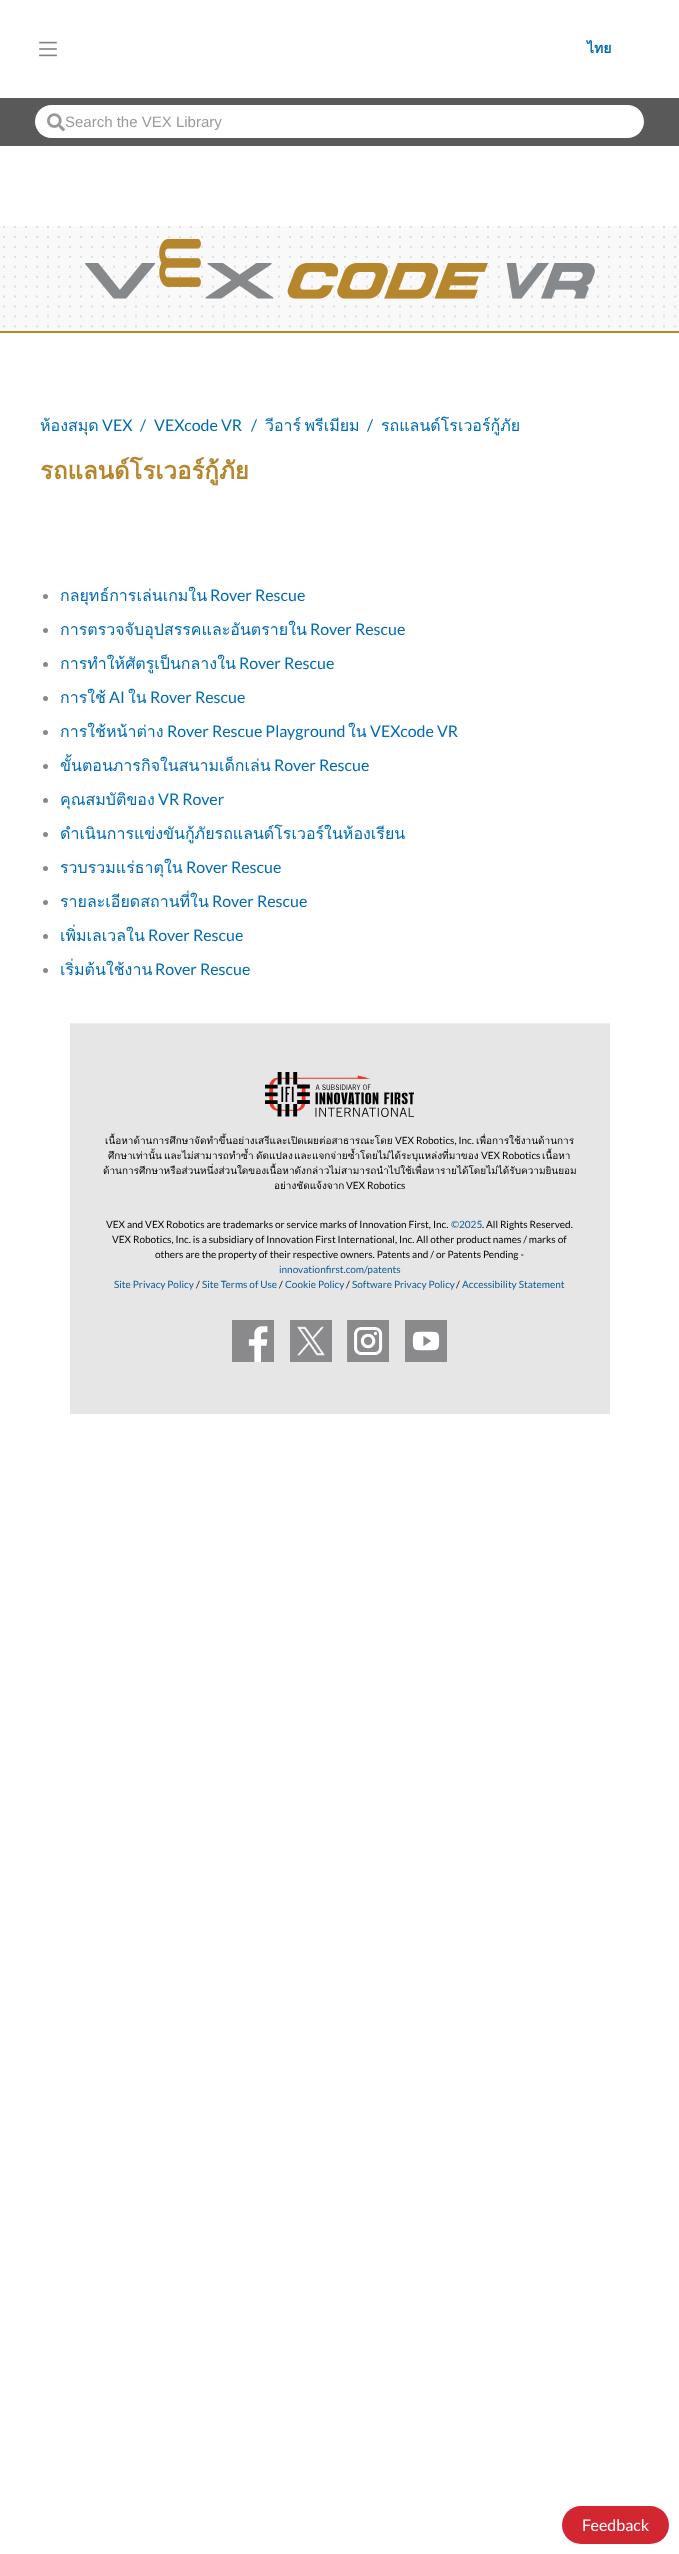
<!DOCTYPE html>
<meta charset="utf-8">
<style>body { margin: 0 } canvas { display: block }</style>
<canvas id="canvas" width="679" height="2554"></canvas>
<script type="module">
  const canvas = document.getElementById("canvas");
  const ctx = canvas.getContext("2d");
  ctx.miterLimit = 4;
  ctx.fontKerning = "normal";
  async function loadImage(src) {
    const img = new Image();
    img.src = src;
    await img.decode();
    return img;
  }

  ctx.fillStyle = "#ffffff";
  ctx.fillRect(0, 0, 679, 2554);
  ctx.drawImage(await loadImage("img1.png"), 39, 41, 18, 16);
  ctx.font = "bold 14px Loma";
  ctx.fillStyle = "#006bb4";
  ctx.fillText("ไทย", 587, 53);
  ctx.fillStyle = "#595959";
  ctx.fillRect(0, 98, 679, 48);
  ctx.fillStyle = "#ffffff";
  ctx.beginPath();
  ctx.roundRect(35, 105, 609, 33, 16.5);
  ctx.fill();
  ctx.drawImage(await loadImage("img2.png"), 47, 113, 18, 19);
  ctx.font = "15px Liberation Sans";
  ctx.fillStyle = "#999999";
  ctx.fillText("Search the VEX Library", 65, 127);
  ctx.drawImage(await loadImage("img3.png"), 0, 226, 679, 105);
  ctx.fillStyle = "#b6862d";
  ctx.fillRect(0, 331, 679, 2);
  ctx.drawImage(await loadImage("img4.png"), 85, 239, 510, 60);
  ctx.font = "16px Loma";
  ctx.fillStyle = "#006bb4";
  ctx.fillText("ห้องสมุด", 40, 431);
  ctx.font = "16px Lato";
  ctx.fillText("VEX", 102, 431);
  ctx.fillText("/", 140, 431);
  ctx.fillText("VEXcode VR", 154, 431);
  ctx.fillText("/", 251, 431);
  ctx.wordSpacing = "-2px";
  ctx.font = "16px Loma";
  ctx.fillText("วีอาร์ พรีเมียม", 265, 431);
  ctx.wordSpacing = "0px";
  ctx.font = "16px Lato";
  ctx.fillText("/", 367, 431);
  ctx.font = "16px Loma";
  ctx.fillText("รถแลนด์โรเวอร์กู้ภัย", 381, 431);
  ctx.font = "bold 24px Loma";
  ctx.fillStyle = "#b6862d";
  ctx.fillText("รถแลนด์โรเวอร์กู้ภัย", 40, 479);
  ctx.fillStyle = "#818a91";
  ctx.beginPath();
  ctx.arc(45.5, 596.5, 2.5, 0, Math.PI * 2);
  ctx.fill();
  ctx.font = "16px Loma";
  ctx.fillStyle = "#006bb4";
  ctx.fillText("กลยุทธ์การเล่นเกมใน", 60, 601);
  ctx.font = "16px Lato";
  ctx.fillText("Rover Rescue", 210, 601);
  ctx.fillStyle = "#818a91";
  ctx.beginPath();
  ctx.arc(45.5, 630.5, 2.5, 0, Math.PI * 2);
  ctx.fill();
  ctx.font = "16px Loma";
  ctx.fillStyle = "#006bb4";
  ctx.fillText("การตรวจจับอุปสรรคและอันตรายใน", 60, 635);
  ctx.font = "16px Lato";
  ctx.fillText("Rover Rescue", 310, 635);
  ctx.fillStyle = "#818a91";
  ctx.beginPath();
  ctx.arc(45.5, 664.5, 2.5, 0, Math.PI * 2);
  ctx.fill();
  ctx.font = "16px Loma";
  ctx.fillStyle = "#006bb4";
  ctx.fillText("การทำให้ศัตรูเป็นกลางใน", 60, 669);
  ctx.font = "16px Lato";
  ctx.fillText("Rover Rescue", 239, 669);
  ctx.fillStyle = "#818a91";
  ctx.beginPath();
  ctx.arc(45.5, 698.5, 2.5, 0, Math.PI * 2);
  ctx.fill();
  ctx.font = "16px Loma";
  ctx.fillStyle = "#006bb4";
  ctx.fillText("การใช้", 60, 703);
  ctx.font = "16px Lato";
  ctx.fillText("AI", 109, 703);
  ctx.font = "16px Loma";
  ctx.fillText("ใน", 128, 703);
  ctx.font = "16px Lato";
  ctx.fillText("Rover Rescue", 150, 703);
  ctx.fillStyle = "#818a91";
  ctx.beginPath();
  ctx.arc(45.5, 732.5, 2.5, 0, Math.PI * 2);
  ctx.fill();
  ctx.font = "16px Loma";
  ctx.fillStyle = "#006bb4";
  ctx.fillText("การใช้หน้าต่าง", 60, 737);
  ctx.font = "16px Lato";
  ctx.fillText("Rover Rescue Playground", 167, 737);
  ctx.font = "16px Loma";
  ctx.fillText("ใน", 348, 737);
  ctx.font = "16px Lato";
  ctx.fillText("VEXcode VR", 370, 737);
  ctx.fillStyle = "#818a91";
  ctx.beginPath();
  ctx.arc(45.5, 766.5, 2.5, 0, Math.PI * 2);
  ctx.fill();
  ctx.font = "16px Loma";
  ctx.fillStyle = "#006bb4";
  ctx.fillText("ขั้นตอนภารกิจในสนามเด็กเล่น", 60, 771);
  ctx.font = "16px Lato";
  ctx.fillText("Rover Rescue", 274, 771);
  ctx.fillStyle = "#818a91";
  ctx.beginPath();
  ctx.arc(45.5, 800.5, 2.5, 0, Math.PI * 2);
  ctx.fill();
  ctx.font = "16px Loma";
  ctx.fillStyle = "#006bb4";
  ctx.fillText("คุณสมบัติของ", 60, 805);
  ctx.font = "16px Lato";
  ctx.fillText("VR Rover", 158, 805);
  ctx.fillStyle = "#818a91";
  ctx.beginPath();
  ctx.arc(45.5, 834.5, 2.5, 0, Math.PI * 2);
  ctx.fill();
  ctx.font = "16px Loma";
  ctx.fillStyle = "#006bb4";
  ctx.fillText("ดำเนินการแข่งขันกู้ภัยรถแลนด์โรเวอร์ในห้องเรียน", 60, 839);
  ctx.fillStyle = "#818a91";
  ctx.beginPath();
  ctx.arc(45.5, 868.5, 2.5, 0, Math.PI * 2);
  ctx.fill();
  ctx.fillStyle = "#006bb4";
  ctx.fillText("รวบรวมแร่ธาตุใน", 60, 873);
  ctx.font = "16px Lato";
  ctx.fillText("Rover Rescue", 186, 873);
  ctx.fillStyle = "#818a91";
  ctx.beginPath();
  ctx.arc(45.5, 902.5, 2.5, 0, Math.PI * 2);
  ctx.fill();
  ctx.font = "16px Loma";
  ctx.fillStyle = "#006bb4";
  ctx.fillText("รายละเอียดสถานที่ใน", 60, 907);
  ctx.font = "16px Lato";
  ctx.fillText("Rover Rescue", 212, 907);
  ctx.fillStyle = "#818a91";
  ctx.beginPath();
  ctx.arc(45.5, 936.5, 2.5, 0, Math.PI * 2);
  ctx.fill();
  ctx.font = "16px Loma";
  ctx.fillStyle = "#006bb4";
  ctx.fillText("เพิ่มเลเวลใน", 60, 941);
  ctx.font = "16px Lato";
  ctx.fillText("Rover Rescue", 148, 941);
  ctx.fillStyle = "#818a91";
  ctx.beginPath();
  ctx.arc(45.5, 970.5, 2.5, 0, Math.PI * 2);
  ctx.fill();
  ctx.font = "16px Loma";
  ctx.fillStyle = "#006bb4";
  ctx.fillText("เริ่มต้นใช้งาน", 60, 975);
  ctx.font = "16px Lato";
  ctx.fillText("Rover Rescue", 155, 975);
  ctx.fillStyle = "#e6e6e6";
  ctx.fillRect(70, 1024, 540, 390);
  ctx.fillStyle = "#eceeef";
  ctx.fillRect(70, 1023, 540, 1);
  ctx.drawImage(await loadImage("img5.png"), 265, 1072, 149, 45);
  ctx.font = "10px Loma";
  ctx.fillStyle = "#000000";
  ctx.fillText("เนื้อหาด้านการศึกษาจัดทำขึ้นอย่างเสรีและเปิดเผยต่อสาธารณะโดย", 105, 1144);
  ctx.font = "10px Lato";
  ctx.fillText("VEX Robotics, Inc.", 395, 1144);
  ctx.font = "10px Loma";
  ctx.fillText("เพื่อการใช้งานด้านการ", 476, 1144);
  ctx.fillText("ศึกษาเท่านั้น", 108, 1159);
  ctx.fillText("และไม่สามารถทำซ้ำ", 164, 1159);
  ctx.fillText("ดัดแปลง", 256, 1159);
  ctx.fillText("และแจกจ่ายซ้ำโดยไม่ได้ระบุแหล่งที่มาของ", 294, 1159);
  ctx.font = "10px Lato";
  ctx.fillText("VEX Robotics", 481, 1159);
  ctx.font = "10px Loma";
  ctx.fillText("เนื้อหา", 542, 1159);
  ctx.fillText("ด้านการศึกษาหรือส่วนหนึ่งส่วนใดของเนื้อหาดังกล่าวไม่สามารถนำไปใช้เพื่อหารายได้โดยไม่ได้รับความยินยอม", 103, 1174);
  ctx.fillText("อย่างชัดแจ้งจาก", 274, 1189);
  ctx.font = "10px Lato";
  ctx.fillText("VEX Robotics", 346, 1189);
  ctx.fillText("VEX and VEX Robotics are trademarks or service marks of Innovation First, Inc.", 106, 1228);
  ctx.fillStyle = "#0b5a92";
  ctx.fillText("©2025", 451, 1228);
  ctx.fillStyle = "#000000";
  ctx.fillText(". All Rights Reserved.", 482, 1228);
  ctx.fillText("VEX Robotics, Inc. is a subsidiary of Innovation First International, Inc. All other product names / marks of", 112, 1243);
  ctx.fillText("others are the property of their respective owners. Patents and / or Patents Pending -", 155, 1258);
  ctx.fillStyle = "#0b5a92";
  ctx.fillText("innovationfirst.com/patents", 279, 1273);
  ctx.fillText("Site Privacy Policy", 114, 1288);
  ctx.fillStyle = "#000000";
  ctx.fillText("/", 196, 1288);
  ctx.fillStyle = "#0b5a92";
  ctx.fillText("Site Terms of Use", 202, 1288);
  ctx.fillStyle = "#000000";
  ctx.fillText("/", 279, 1288);
  ctx.fillStyle = "#0b5a92";
  ctx.fillText("Cookie Policy", 285, 1288);
  ctx.fillStyle = "#000000";
  ctx.fillText("/", 346, 1288);
  ctx.fillStyle = "#0b5a92";
  ctx.fillText("Software Privacy Policy", 352, 1288);
  ctx.fillStyle = "#000000";
  ctx.fillText("/", 456, 1288);
  ctx.fillStyle = "#0b5a92";
  ctx.fillText("Accessibility Statement", 462, 1288);
  ctx.drawImage(await loadImage("img6.png"), 232, 1320, 42, 42);
  ctx.drawImage(await loadImage("img7.png"), 290, 1320, 42, 42);
  ctx.drawImage(await loadImage("img8.png"), 347, 1320, 42, 42);
  ctx.drawImage(await loadImage("img9.png"), 405, 1320, 42, 42);
  ctx.fillStyle = "#d22630";
  ctx.beginPath();
  ctx.roundRect(562, 2506, 107, 38, 19);
  ctx.fill();
  ctx.font = "16px Lato";
  ctx.fillStyle = "#ffffff";
  ctx.fillText("Feedback", 582, 2531);
</script>
